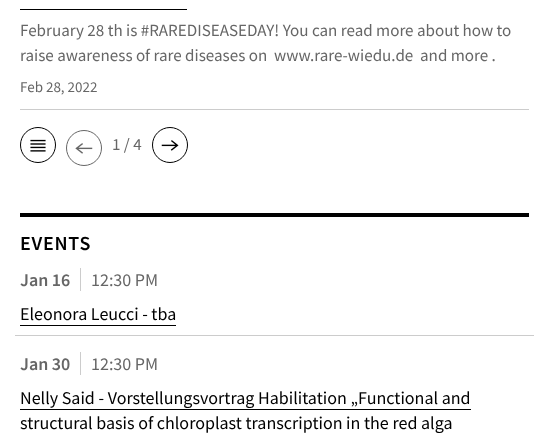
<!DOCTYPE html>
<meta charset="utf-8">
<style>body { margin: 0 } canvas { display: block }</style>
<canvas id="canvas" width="549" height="434"></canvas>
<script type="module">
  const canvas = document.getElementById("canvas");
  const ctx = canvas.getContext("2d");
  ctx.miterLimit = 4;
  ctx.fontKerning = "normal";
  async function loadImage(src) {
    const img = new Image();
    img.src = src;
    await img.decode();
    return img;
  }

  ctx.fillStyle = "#ffffff";
  ctx.fillRect(0, 0, 549, 434);
  ctx.fillStyle = "#cccccc";
  ctx.fillRect(20, 109, 509, 1);
  ctx.fillStyle = "#000000";
  ctx.fillRect(20, 9, 167, 1);
  ctx.font = "17px Source Sans Pro";
  ctx.fillStyle = "#666666";
  ctx.fillText("February 28 th is #RAREDISEASEDAY! You can read more about how to", 20, 36);
  ctx.fillText("raise awareness of rare diseases on  www.rare-wiedu.de  and more .", 20, 61);
  ctx.font = "15px Source Sans Pro";
  ctx.fillText("Feb 28, 2022", 20, 92);
  ctx.beginPath();
  ctx.arc(38, 145, 17.5, 0, Math.PI * 2);
  ctx.strokeStyle = "#000000";
  ctx.stroke();
  ctx.drawImage(await loadImage("img1.png"), 30, 139, 16, 13);
  ctx.beginPath();
  ctx.arc(84, 148, 17.5, 0, Math.PI * 2);
  ctx.strokeStyle = "#666666";
  ctx.stroke();
  ctx.drawImage(await loadImage("img2.png"), 75, 143, 18, 11);
  ctx.font = "17px Source Sans Pro";
  ctx.fillText("1 / 4", 112, 150);
  ctx.beginPath();
  ctx.arc(170, 145, 17.5, 0, Math.PI * 2);
  ctx.strokeStyle = "#000000";
  ctx.stroke();
  ctx.drawImage(await loadImage("img3.png"), 161, 140, 18, 11);
  ctx.fillStyle = "#000000";
  ctx.fillRect(20, 213, 509, 4);
  ctx.letterSpacing = "0.75px";
  ctx.font = "600 20px Source Sans Pro";
  ctx.fillText("EVENTS", 20, 250);
  ctx.fillStyle = "#cccccc";
  ctx.fillRect(15, 335, 519, 1);
  ctx.letterSpacing = "0px";
  ctx.font = "600 18px Source Sans Pro";
  ctx.fillStyle = "#666666";
  ctx.fillText("Jan 16", 20, 286);
  ctx.font = "18px Source Sans Pro";
  ctx.fillText("12:30 PM", 91, 286);
  ctx.fillStyle = "#cccccc";
  ctx.fillRect(80, 268, 1, 23);
  ctx.fillStyle = "#000000";
  ctx.fillText("Eleonora Leucci - tba", 20, 320);
  ctx.fillRect(20, 325, 156, 1);
  ctx.font = "600 18px Source Sans Pro";
  ctx.fillStyle = "#666666";
  ctx.fillText("Jan 30", 20, 370);
  ctx.font = "18px Source Sans Pro";
  ctx.fillText("12:30 PM", 91, 370);
  ctx.fillStyle = "#cccccc";
  ctx.fillRect(80, 352, 1, 23);
  ctx.fillStyle = "#000000";
  ctx.fillText("Nelly Said - Vorstellungsvortrag Habilitation „Functional and", 20, 404);
  ctx.fillRect(20, 409, 451, 1);
  ctx.fillText("structural basis of chloroplast transcription in the red alga", 20, 429);
</script>
